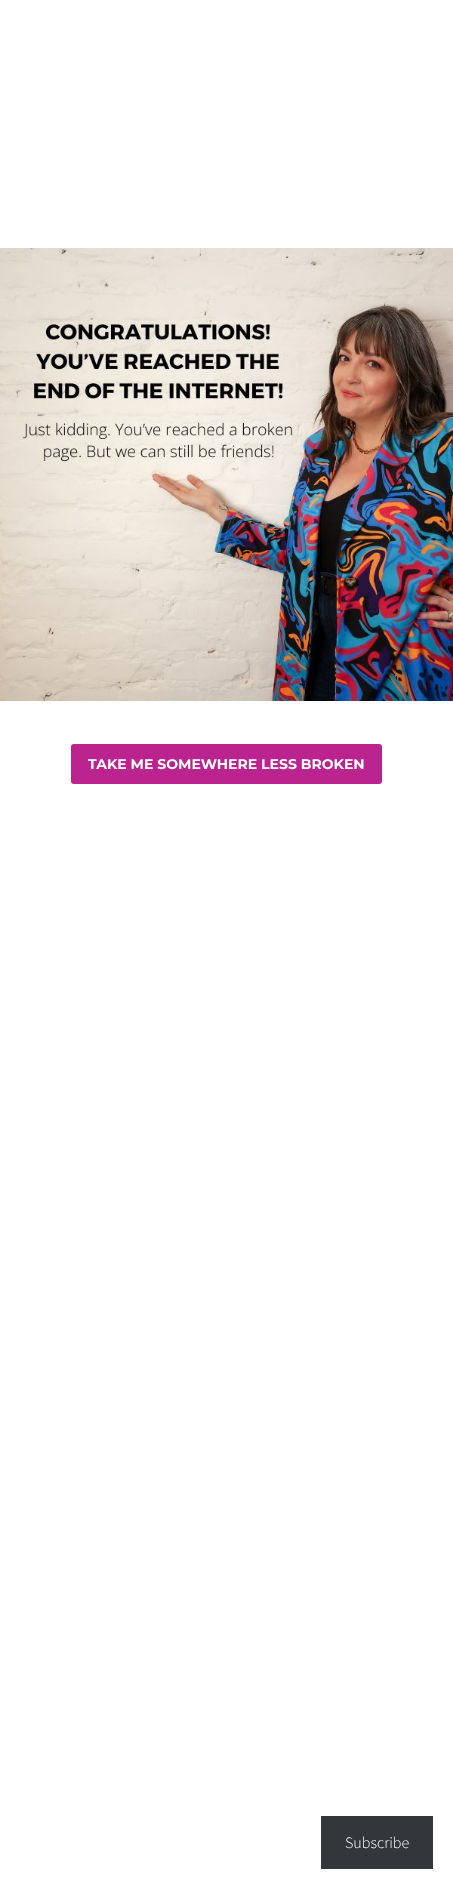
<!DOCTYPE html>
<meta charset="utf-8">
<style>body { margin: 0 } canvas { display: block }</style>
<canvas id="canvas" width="453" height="1889"></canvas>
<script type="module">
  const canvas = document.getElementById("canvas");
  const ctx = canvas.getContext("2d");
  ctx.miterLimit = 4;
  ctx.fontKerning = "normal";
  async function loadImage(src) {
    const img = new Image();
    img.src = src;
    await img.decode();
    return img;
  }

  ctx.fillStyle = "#ffffff";
  ctx.fillRect(0, 0, 453, 1889);
  ctx.drawImage(await loadImage("img1.png"), 0, 248, 453, 453);
  ctx.fillStyle = "#bb248f";
  ctx.beginPath();
  ctx.roundRect(71, 744, 311, 40, 3);
  ctx.fill();
  ctx.font = "bold 14px Montserrat";
  ctx.fillStyle = "#ffffff";
  ctx.fillText("TAKE ME SOMEWHERE LESS BROKEN", 88, 769);
  ctx.fillStyle = "#32373c";
  ctx.fillRect(321, 1816, 112, 53);
  ctx.font = "300 16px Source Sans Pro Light";
  ctx.fillStyle = "#ffffff";
  ctx.fillText("Subscribe", 345, 1848);
</script>
